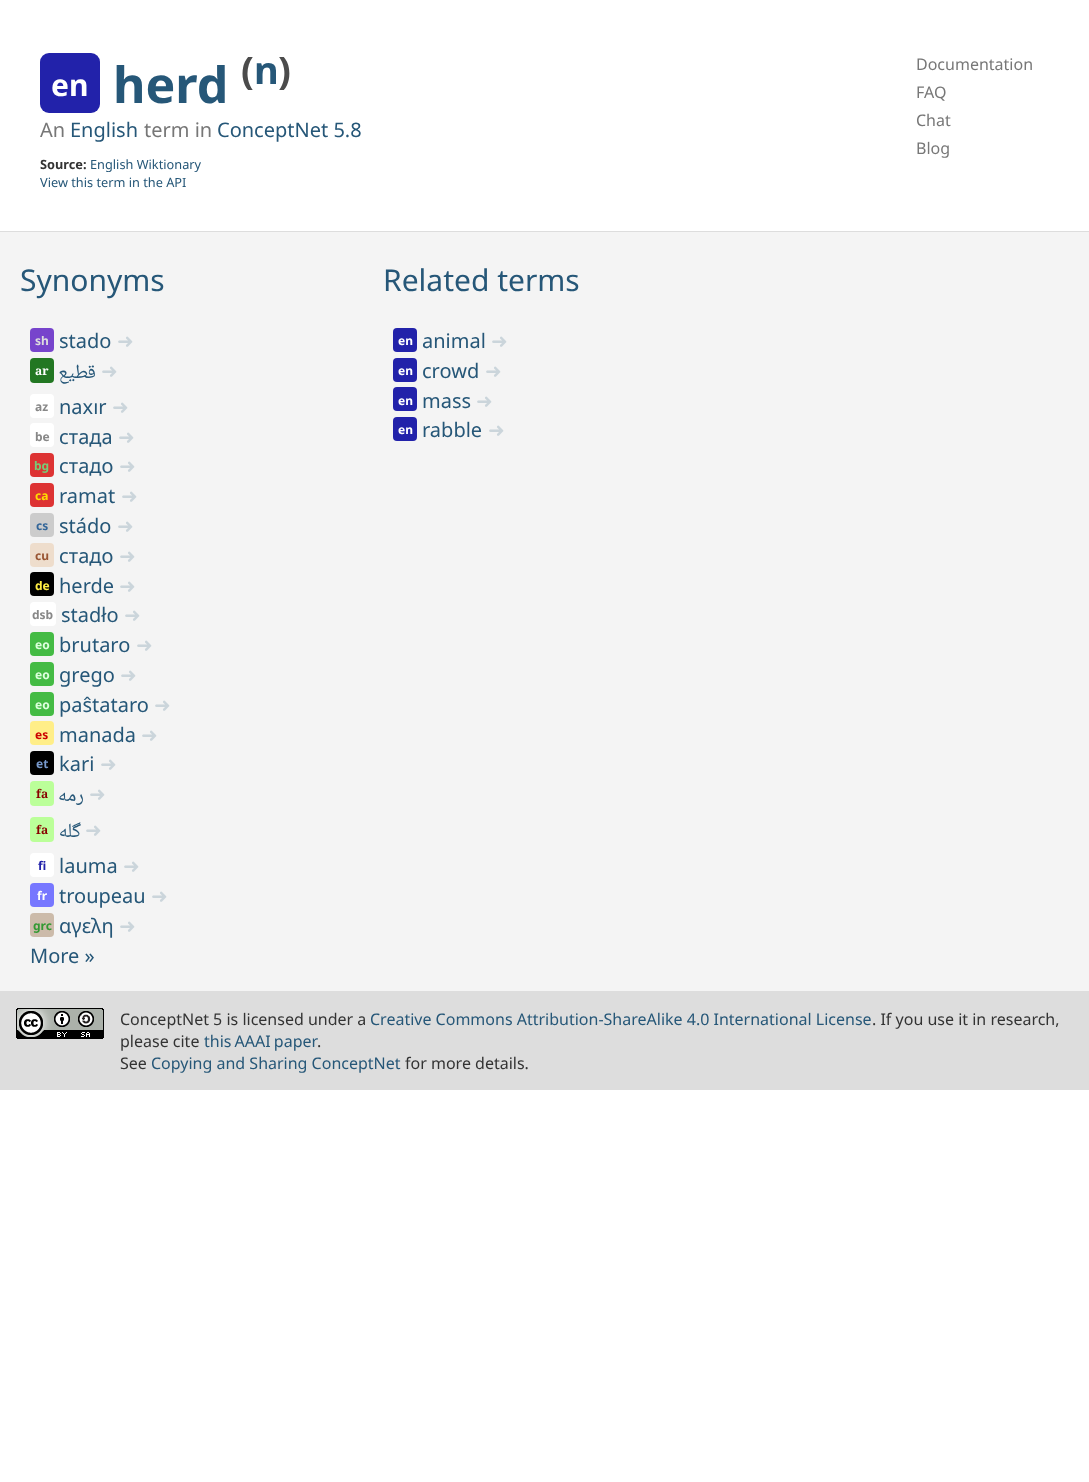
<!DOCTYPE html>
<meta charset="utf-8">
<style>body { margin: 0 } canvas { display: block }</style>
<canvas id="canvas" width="1089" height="1482"></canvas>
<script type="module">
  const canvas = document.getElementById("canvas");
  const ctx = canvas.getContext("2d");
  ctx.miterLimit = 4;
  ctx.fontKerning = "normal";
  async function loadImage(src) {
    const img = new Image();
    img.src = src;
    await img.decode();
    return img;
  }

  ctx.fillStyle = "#ffffff";
  ctx.fillRect(0, 0, 1089, 1482);
  ctx.fillStyle = "#2222aa";
  ctx.beginPath();
  ctx.roundRect(40, 53, 60, 60, 9);
  ctx.fill();
  ctx.font = "bold 30px Noto Sans";
  ctx.fillStyle = "#ffffff";
  ctx.fillText("en", 51, 96);
  ctx.font = "bold 50px Noto Sans";
  ctx.fillStyle = "#265778";
  ctx.fillText("herd", 113, 103);
  ctx.font = "bold 38px Noto Sans";
  ctx.fillStyle = "#4b4b4b";
  ctx.fillText("(", 241, 84);
  ctx.fillStyle = "#265778";
  ctx.fillText("n", 254, 84);
  ctx.fillStyle = "#4b4b4b";
  ctx.fillText(")", 278, 84);
  ctx.font = "20px Noto Sans";
  ctx.fillStyle = "#777777";
  ctx.fillText("An", 40, 137);
  ctx.fillStyle = "#265778";
  ctx.fillText("English", 70, 137);
  ctx.fillStyle = "#777777";
  ctx.fillText("term in", 144, 137);
  ctx.fillStyle = "#265778";
  ctx.fillText("ConceptNet 5.8", 217, 137);
  ctx.font = "bold 12.75px Noto Sans";
  ctx.fillStyle = "#333333";
  ctx.fillText("Source:", 40, 169);
  ctx.font = "12.75px Noto Sans";
  ctx.fillStyle = "#265778";
  ctx.fillText("English Wiktionary", 90, 169);
  ctx.fillText("View this term in the API", 40, 187);
  ctx.font = "16px Noto Sans";
  ctx.fillStyle = "#777777";
  ctx.fillText("Documentation", 916, 70);
  ctx.fillText("FAQ", 916, 98);
  ctx.fillText("Chat", 916, 126);
  ctx.fillText("Blog", 916, 154);
  ctx.fillStyle = "#f4f4f4";
  ctx.fillRect(0, 232, 1089, 759);
  ctx.fillStyle = "#dddddd";
  ctx.fillRect(0, 231, 1089, 1);
  ctx.fillRect(0, 991, 1089, 99);
  ctx.font = "30px Noto Sans";
  ctx.fillStyle = "#265778";
  ctx.fillText("Synonyms", 20, 291);
  ctx.fillStyle = "#7744cc";
  ctx.beginPath();
  ctx.roundRect(30, 328, 24, 24, 4);
  ctx.fill();
  ctx.font = "bold 12px Noto Sans";
  ctx.fillStyle = "#dddddd";
  ctx.fillText("sh", 35, 345);
  ctx.font = "20px Noto Sans";
  ctx.fillStyle = "#265778";
  ctx.fillText("stado", 59, 348);
  ctx.font = "20px DejaVu Sans";
  ctx.fillStyle = "#cbd5db";
  ctx.fillText("➜", 117, 348);
  ctx.fillStyle = "#227722";
  ctx.beginPath();
  ctx.roundRect(30, 358, 24, 25, 4);
  ctx.fill();
  ctx.font = "bold 12px Noto Naskh Arabic";
  ctx.fillStyle = "#ffffff";
  ctx.fillText("ar", 35, 375);
  ctx.direction = "rtl";
  ctx.font = "20px Noto Naskh Arabic";
  ctx.fillStyle = "#265778";
  ctx.fillText("قطيع", 96, 378);
  ctx.direction = "ltr";
  ctx.font = "20px DejaVu Sans";
  ctx.fillStyle = "#cbd5db";
  ctx.fillText("➜", 101, 378);
  ctx.fillStyle = "#ffffff";
  ctx.beginPath();
  ctx.roundRect(30, 394, 24, 24, 4);
  ctx.fill();
  ctx.font = "bold 12px Noto Sans";
  ctx.fillStyle = "#888888";
  ctx.fillText("az", 35, 411);
  ctx.font = "20px Noto Sans";
  ctx.fillStyle = "#265778";
  ctx.fillText("naxır", 59, 414);
  ctx.font = "20px DejaVu Sans";
  ctx.fillStyle = "#cbd5db";
  ctx.fillText("➜", 112, 414);
  ctx.fillStyle = "#ffffff";
  ctx.beginPath();
  ctx.roundRect(30, 423, 24, 24, 4);
  ctx.fill();
  ctx.font = "bold 12px Noto Sans";
  ctx.fillStyle = "#888888";
  ctx.fillText("be", 35, 441);
  ctx.font = "20px Noto Sans";
  ctx.fillStyle = "#265778";
  ctx.fillText("стада", 59, 444);
  ctx.font = "20px DejaVu Sans";
  ctx.fillStyle = "#cbd5db";
  ctx.fillText("➜", 118, 444);
  ctx.fillStyle = "#dd3333";
  ctx.beginPath();
  ctx.roundRect(30, 453, 24, 24, 4);
  ctx.fill();
  ctx.font = "bold 12px Noto Sans";
  ctx.fillStyle = "#77cc77";
  ctx.fillText("bg", 34, 470);
  ctx.font = "20px Noto Sans";
  ctx.fillStyle = "#265778";
  ctx.fillText("стадо", 59, 473);
  ctx.font = "20px DejaVu Sans";
  ctx.fillStyle = "#cbd5db";
  ctx.fillText("➜", 119, 473);
  ctx.fillStyle = "#dd3333";
  ctx.beginPath();
  ctx.roundRect(30, 483, 24, 24, 4);
  ctx.fill();
  ctx.font = "bold 12px Noto Sans";
  ctx.fillStyle = "#ffdd00";
  ctx.fillText("ca", 35, 500);
  ctx.font = "20px Noto Sans";
  ctx.fillStyle = "#265778";
  ctx.fillText("ramat", 59, 503);
  ctx.font = "20px DejaVu Sans";
  ctx.fillStyle = "#cbd5db";
  ctx.fillText("➜", 121, 503);
  ctx.fillStyle = "#cccccc";
  ctx.beginPath();
  ctx.roundRect(30, 513, 24, 24, 4);
  ctx.fill();
  ctx.font = "bold 12px Noto Sans";
  ctx.fillStyle = "#336699";
  ctx.fillText("cs", 36, 530);
  ctx.font = "20px Noto Sans";
  ctx.fillStyle = "#265778";
  ctx.fillText("stádo", 59, 533);
  ctx.font = "20px DejaVu Sans";
  ctx.fillStyle = "#cbd5db";
  ctx.fillText("➜", 117, 533);
  ctx.fillStyle = "#eeddcc";
  ctx.beginPath();
  ctx.roundRect(30, 543, 24, 24, 4);
  ctx.fill();
  ctx.font = "bold 12px Noto Sans";
  ctx.fillStyle = "#995533";
  ctx.fillText("cu", 35, 560);
  ctx.font = "20px Noto Sans";
  ctx.fillStyle = "#265778";
  ctx.fillText("стадо", 59, 563);
  ctx.font = "20px DejaVu Sans";
  ctx.fillStyle = "#cbd5db";
  ctx.fillText("➜", 119, 563);
  ctx.fillStyle = "#000000";
  ctx.beginPath();
  ctx.roundRect(30, 572, 24, 24, 4);
  ctx.fill();
  ctx.font = "bold 12px Noto Sans";
  ctx.fillStyle = "#ffee44";
  ctx.fillText("de", 35, 590);
  ctx.font = "20px Noto Sans";
  ctx.fillStyle = "#265778";
  ctx.fillText("herde", 59, 593);
  ctx.font = "20px DejaVu Sans";
  ctx.fillStyle = "#cbd5db";
  ctx.fillText("➜", 119, 593);
  ctx.fillStyle = "#ffffff";
  ctx.beginPath();
  ctx.roundRect(30, 602, 26, 24, 4);
  ctx.fill();
  ctx.font = "bold 12px Noto Sans";
  ctx.fillStyle = "#888888";
  ctx.fillText("dsb", 32, 619);
  ctx.font = "20px Noto Sans";
  ctx.fillStyle = "#265778";
  ctx.fillText("stadło", 61, 622);
  ctx.font = "20px DejaVu Sans";
  ctx.fillStyle = "#cbd5db";
  ctx.fillText("➜", 124, 622);
  ctx.fillStyle = "#44bb44";
  ctx.beginPath();
  ctx.roundRect(30, 632, 24, 24, 4);
  ctx.fill();
  ctx.font = "bold 12px Noto Sans";
  ctx.fillStyle = "#ddffdd";
  ctx.fillText("eo", 35, 649);
  ctx.font = "20px Noto Sans";
  ctx.fillStyle = "#265778";
  ctx.fillText("brutaro", 59, 652);
  ctx.font = "20px DejaVu Sans";
  ctx.fillStyle = "#cbd5db";
  ctx.fillText("➜", 136, 652);
  ctx.fillStyle = "#44bb44";
  ctx.beginPath();
  ctx.roundRect(30, 662, 24, 24, 4);
  ctx.fill();
  ctx.font = "bold 12px Noto Sans";
  ctx.fillStyle = "#ddffdd";
  ctx.fillText("eo", 35, 679);
  ctx.font = "20px Noto Sans";
  ctx.fillStyle = "#265778";
  ctx.fillText("grego", 59, 682);
  ctx.font = "20px DejaVu Sans";
  ctx.fillStyle = "#cbd5db";
  ctx.fillText("➜", 120, 682);
  ctx.fillStyle = "#44bb44";
  ctx.beginPath();
  ctx.roundRect(30, 692, 24, 24, 4);
  ctx.fill();
  ctx.font = "bold 12px Noto Sans";
  ctx.fillStyle = "#ddffdd";
  ctx.fillText("eo", 35, 709);
  ctx.font = "20px Noto Sans";
  ctx.fillStyle = "#265778";
  ctx.fillText("paŝtataro", 59, 712);
  ctx.font = "20px DejaVu Sans";
  ctx.fillStyle = "#cbd5db";
  ctx.fillText("➜", 154, 712);
  ctx.fillStyle = "#ffee88";
  ctx.beginPath();
  ctx.roundRect(30, 721, 24, 24, 4);
  ctx.fill();
  ctx.font = "bold 12px Noto Sans";
  ctx.fillStyle = "#cc0000";
  ctx.fillText("es", 35, 739);
  ctx.font = "20px Noto Sans";
  ctx.fillStyle = "#265778";
  ctx.fillText("manada", 59, 742);
  ctx.font = "20px DejaVu Sans";
  ctx.fillStyle = "#cbd5db";
  ctx.fillText("➜", 141, 742);
  ctx.fillStyle = "#000000";
  ctx.beginPath();
  ctx.roundRect(30, 751, 24, 24, 4);
  ctx.fill();
  ctx.font = "bold 12px Noto Sans";
  ctx.fillStyle = "#7799cc";
  ctx.fillText("et", 36, 768);
  ctx.font = "20px Noto Sans";
  ctx.fillStyle = "#265778";
  ctx.fillText("kari", 59, 771);
  ctx.font = "20px DejaVu Sans";
  ctx.fillStyle = "#cbd5db";
  ctx.fillText("➜", 100, 771);
  ctx.fillStyle = "#bbff99";
  ctx.beginPath();
  ctx.roundRect(30, 781, 24, 25, 4);
  ctx.fill();
  ctx.font = "bold 12px Noto Naskh Arabic";
  ctx.fillStyle = "#880000";
  ctx.fillText("fa", 36, 798);
  ctx.direction = "rtl";
  ctx.font = "20px Noto Naskh Arabic";
  ctx.fillStyle = "#265778";
  ctx.fillText("رمه", 84, 801);
  ctx.direction = "ltr";
  ctx.font = "20px DejaVu Sans";
  ctx.fillStyle = "#cbd5db";
  ctx.fillText("➜", 89, 801);
  ctx.fillStyle = "#bbff99";
  ctx.beginPath();
  ctx.roundRect(30, 817, 24, 25, 4);
  ctx.fill();
  ctx.font = "bold 12px Noto Naskh Arabic";
  ctx.fillStyle = "#880000";
  ctx.fillText("fa", 36, 834);
  ctx.direction = "rtl";
  ctx.font = "20px Noto Naskh Arabic";
  ctx.fillStyle = "#265778";
  ctx.fillText("گله", 81, 837);
  ctx.direction = "ltr";
  ctx.font = "20px DejaVu Sans";
  ctx.fillStyle = "#cbd5db";
  ctx.fillText("➜", 85, 837);
  ctx.fillStyle = "#ffffff";
  ctx.beginPath();
  ctx.roundRect(30, 853, 24, 24, 4);
  ctx.fill();
  ctx.font = "bold 12px Noto Sans";
  ctx.fillStyle = "#2222aa";
  ctx.fillText("fi", 38, 870);
  ctx.font = "20px Noto Sans";
  ctx.fillStyle = "#265778";
  ctx.fillText("lauma", 59, 873);
  ctx.font = "20px DejaVu Sans";
  ctx.fillStyle = "#cbd5db";
  ctx.fillText("➜", 123, 873);
  ctx.fillStyle = "#7777ff";
  ctx.beginPath();
  ctx.roundRect(30, 883, 24, 24, 4);
  ctx.fill();
  ctx.font = "bold 12px Noto Sans";
  ctx.fillStyle = "#ffffff";
  ctx.fillText("fr", 37, 900);
  ctx.font = "20px Noto Sans";
  ctx.fillStyle = "#265778";
  ctx.fillText("troupeau", 59, 903);
  ctx.font = "20px DejaVu Sans";
  ctx.fillStyle = "#cbd5db";
  ctx.fillText("➜", 151, 903);
  ctx.fillStyle = "#ccbbaa";
  ctx.beginPath();
  ctx.roundRect(30, 913, 24, 24, 4);
  ctx.fill();
  ctx.font = "bold 12px Noto Sans";
  ctx.fillStyle = "#339933";
  ctx.fillText("grc", 33, 930);
  ctx.font = "20px Noto Sans";
  ctx.fillStyle = "#265778";
  ctx.fillText("αγελη", 59, 933);
  ctx.font = "20px DejaVu Sans";
  ctx.fillStyle = "#cbd5db";
  ctx.fillText("➜", 119, 933);
  ctx.font = "20px Noto Sans";
  ctx.fillStyle = "#265778";
  ctx.fillText("More »", 30, 963);
  ctx.font = "30px Noto Sans";
  ctx.fillText("Related terms", 383, 291);
  ctx.fillStyle = "#2222aa";
  ctx.beginPath();
  ctx.roundRect(393, 328, 24, 24, 4);
  ctx.fill();
  ctx.font = "bold 12px Noto Sans";
  ctx.fillStyle = "#ffffff";
  ctx.fillText("en", 398, 345);
  ctx.font = "20px Noto Sans";
  ctx.fillStyle = "#265778";
  ctx.fillText("animal", 422, 348);
  ctx.font = "20px DejaVu Sans";
  ctx.fillStyle = "#cbd5db";
  ctx.fillText("➜", 491, 348);
  ctx.fillStyle = "#2222aa";
  ctx.beginPath();
  ctx.roundRect(393, 358, 24, 24, 4);
  ctx.fill();
  ctx.font = "bold 12px Noto Sans";
  ctx.fillStyle = "#ffffff";
  ctx.fillText("en", 398, 375);
  ctx.font = "20px Noto Sans";
  ctx.fillStyle = "#265778";
  ctx.fillText("crowd", 422, 378);
  ctx.font = "20px DejaVu Sans";
  ctx.fillStyle = "#cbd5db";
  ctx.fillText("➜", 485, 378);
  ctx.fillStyle = "#2222aa";
  ctx.beginPath();
  ctx.roundRect(393, 387, 24, 24, 4);
  ctx.fill();
  ctx.font = "bold 12px Noto Sans";
  ctx.fillStyle = "#ffffff";
  ctx.fillText("en", 398, 405);
  ctx.font = "20px Noto Sans";
  ctx.fillStyle = "#265778";
  ctx.fillText("mass", 422, 408);
  ctx.font = "20px DejaVu Sans";
  ctx.fillStyle = "#cbd5db";
  ctx.fillText("➜", 476, 408);
  ctx.fillStyle = "#2222aa";
  ctx.beginPath();
  ctx.roundRect(393, 417, 24, 24, 4);
  ctx.fill();
  ctx.font = "bold 12px Noto Sans";
  ctx.fillStyle = "#ffffff";
  ctx.fillText("en", 398, 434);
  ctx.font = "20px Noto Sans";
  ctx.fillStyle = "#265778";
  ctx.fillText("rabble", 422, 437);
  ctx.font = "20px DejaVu Sans";
  ctx.fillStyle = "#cbd5db";
  ctx.fillText("➜", 488, 437);
  ctx.drawImage(await loadImage("img1.png"), 16, 1008, 88, 31);
  ctx.font = "16px Noto Sans";
  ctx.fillStyle = "#333333";
  ctx.fillText("ConceptNet 5 is licensed under a", 120, 1025);
  ctx.fillStyle = "#265778";
  ctx.fillText("Creative Commons Attribution-ShareAlike 4.0 International License", 370, 1025);
  ctx.fillStyle = "#333333";
  ctx.fillText(". If you use it in research,", 872, 1025);
  ctx.fillText("please cite", 120, 1047);
  ctx.wordSpacing = "-1px";
  ctx.fillStyle = "#265778";
  ctx.fillText("this AAAI paper", 204, 1047);
  ctx.wordSpacing = "0px";
  ctx.fillStyle = "#333333";
  ctx.fillText(".", 317, 1047);
  ctx.fillText("See", 120, 1069);
  ctx.fillStyle = "#265778";
  ctx.fillText("Copying and Sharing ConceptNet", 151, 1069);
  ctx.fillStyle = "#333333";
  ctx.fillText("for more details.", 405, 1069);
</script>
